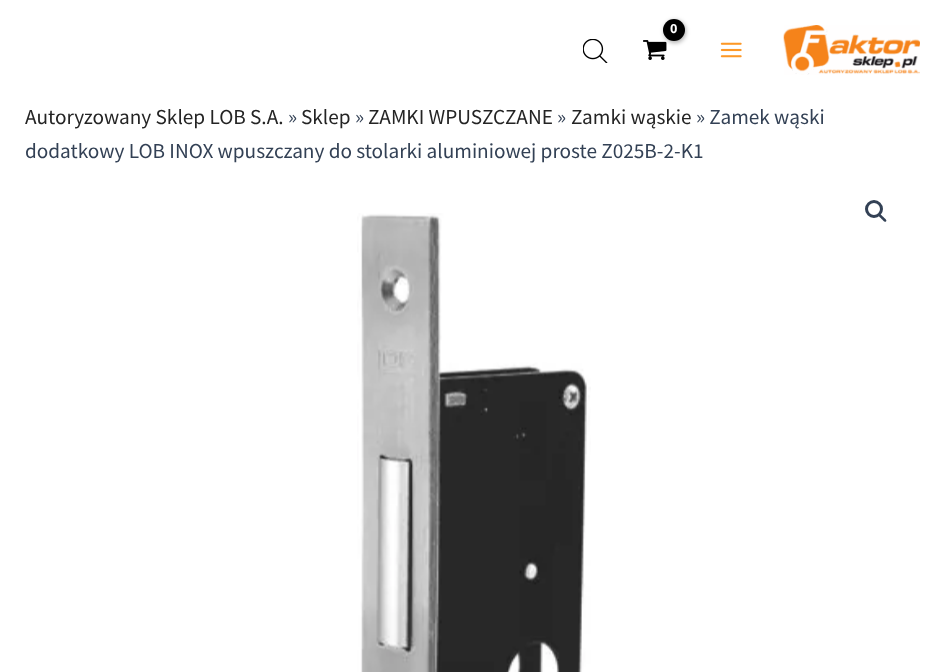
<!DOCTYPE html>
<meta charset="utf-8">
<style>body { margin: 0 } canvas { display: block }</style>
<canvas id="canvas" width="945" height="672"></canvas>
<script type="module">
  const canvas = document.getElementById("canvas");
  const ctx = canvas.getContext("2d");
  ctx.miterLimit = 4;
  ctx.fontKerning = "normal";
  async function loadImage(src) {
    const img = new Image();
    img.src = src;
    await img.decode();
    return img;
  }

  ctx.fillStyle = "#ffffff";
  ctx.fillRect(0, 0, 945, 672);
  ctx.drawImage(await loadImage("img1.png"), 583, 39, 25, 24);
  ctx.drawImage(await loadImage("img2.png"), 643, 40, 24, 20);
  ctx.fillStyle = "rgba(0, 0, 0, 0.3)";
  ctx.filter = "blur(2px)";
  ctx.beginPath();
  ctx.roundRect(664, 20, 22, 23, 11);
  ctx.fill();
  ctx.filter = "none";
  ctx.fillStyle = "#000000";
  ctx.beginPath();
  ctx.arc(674, 30, 11, 0, Math.PI * 2);
  ctx.fill();
  ctx.letterSpacing = "-1px";
  ctx.font = "bold 14px Source Sans Pro";
  ctx.fillStyle = "#ffffff";
  ctx.fillText("0", 670, 33);
  ctx.drawImage(await loadImage("img3.png"), 720, 42, 22, 16);
  ctx.drawImage(await loadImage("img4.png"), 783, 25, 137, 50);
  ctx.letterSpacing = "0px";
  ctx.font = "21.25px Source Sans Pro";
  ctx.fillStyle = "#242424";
  ctx.fillText("Autoryzowany Sklep LOB S.A.", 25, 124);
  ctx.fillStyle = "#334155";
  ctx.fillText("»", 288, 124);
  ctx.fillStyle = "#242424";
  ctx.fillText("Sklep", 301, 124);
  ctx.fillStyle = "#334155";
  ctx.fillText("»", 355, 124);
  ctx.fillStyle = "#242424";
  ctx.fillText("ZAMKI WPUSZCZANE", 368, 124);
  ctx.fillStyle = "#334155";
  ctx.fillText("»", 557, 124);
  ctx.fillStyle = "#242424";
  ctx.fillText("Zamki wąskie", 571, 124);
  ctx.fillStyle = "#334155";
  ctx.fillText("» Zamek wąski", 696, 124);
  ctx.fillText("dodatkowy LOB INOX wpuszczany do stolarki aluminiowej proste Z025B-2-K1", 25, 158);
  ctx.drawImage(await loadImage("img5.png"), 357, 213, 234, 459);
  ctx.beginPath();
  ctx.arc(874, 209, 7.5, 0, Math.PI * 2);
  ctx.strokeStyle = "#334155";
  ctx.lineWidth = 3;
  ctx.stroke();
  ctx.beginPath();
  ctx.moveTo(879, 214.5);
  ctx.bezierCurveTo(880.5, 213, 882.5, 216.5, 883.5, 217);
  ctx.bezierCurveTo(884, 218, 887.5, 220, 886, 221.5);
  ctx.bezierCurveTo(884.5, 223, 882.5, 219.5, 881.5, 219);
  ctx.bezierCurveTo(881, 218, 877.5, 216, 879, 214.5);
  ctx.closePath();
  ctx.fill();
</script>
